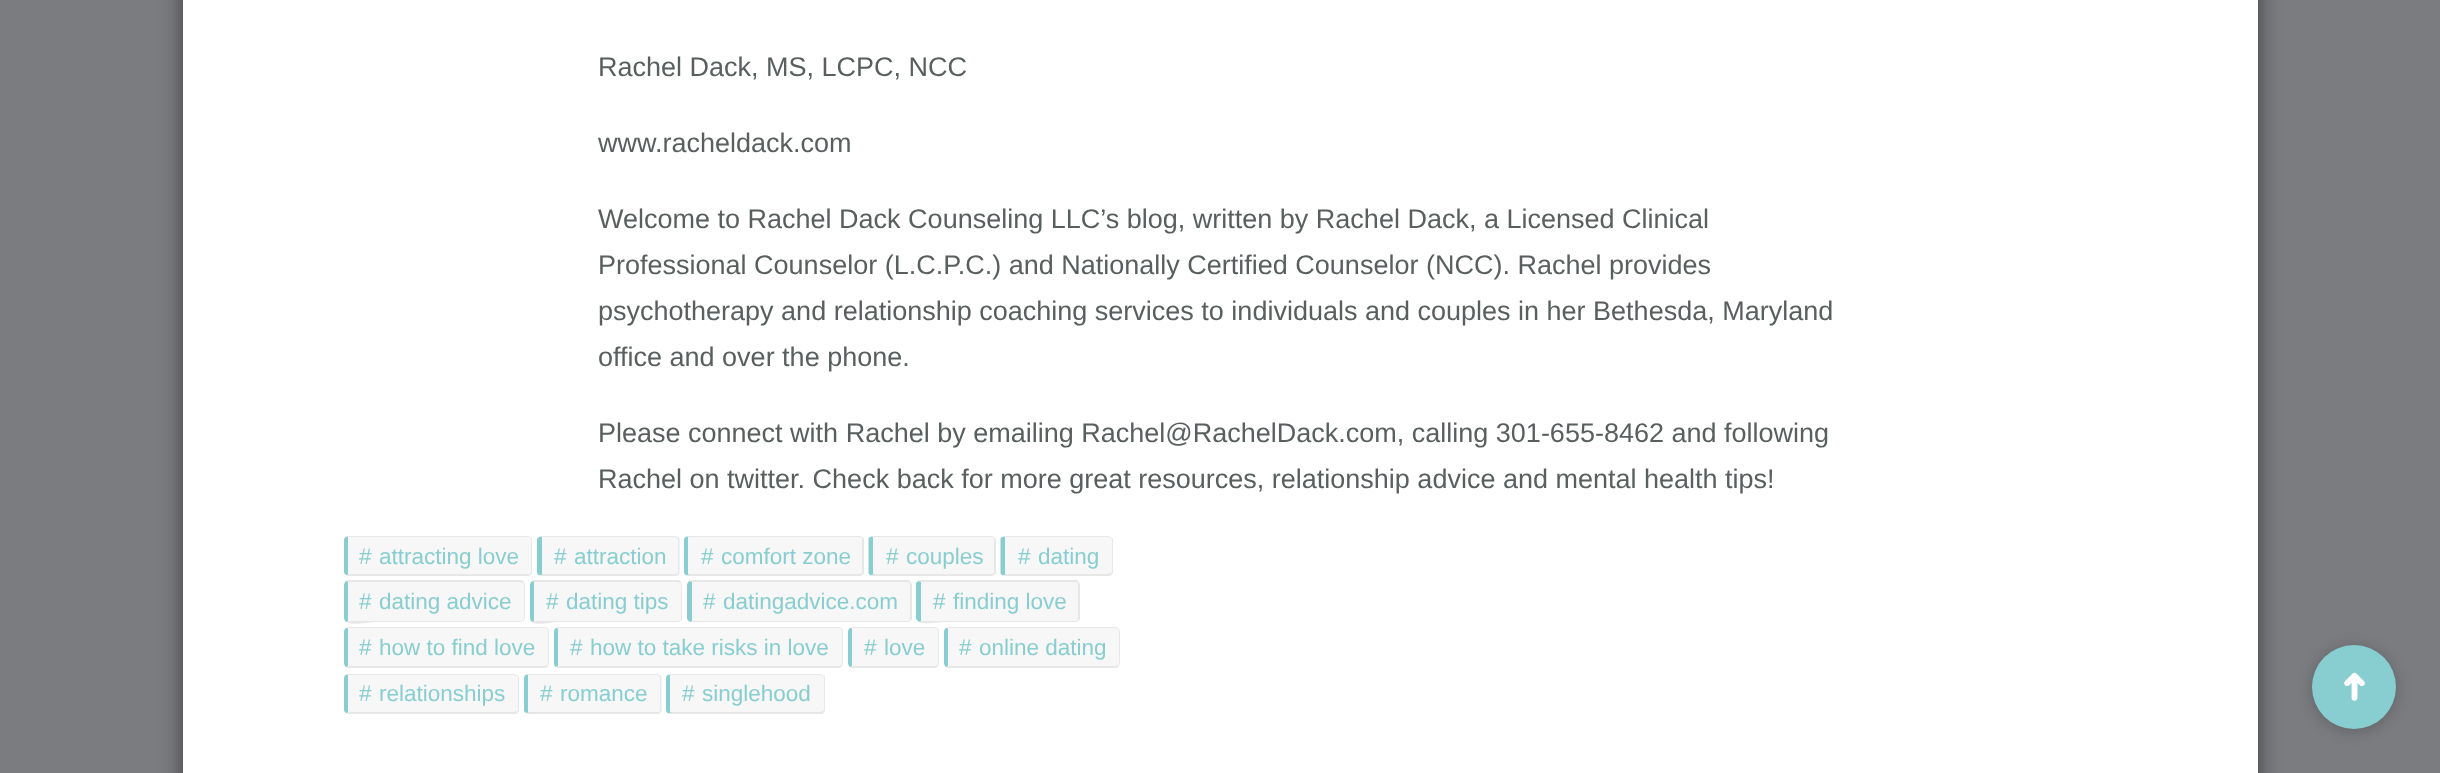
<!DOCTYPE html>
<meta charset="utf-8">
<style>body { margin: 0 } canvas { display: block }</style>
<canvas id="canvas" width="2440" height="773"></canvas>
<script type="module">
  const canvas = document.getElementById("canvas");
  const ctx = canvas.getContext("2d");
  ctx.miterLimit = 4;
  ctx.fontKerning = "normal";

  ctx.fillStyle = "#7a7c7f";
  ctx.fillRect(0, 0, 2440, 773);
  ctx.fillStyle = "rgba(0, 0, 0, 0.5)";
  ctx.filter = "blur(11px)";
  ctx.beginPath();
  ctx.rect(183, -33, 2075, 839);
  ctx.fill();
  ctx.filter = "none";
  ctx.fillStyle = "#ffffff";
  ctx.fillRect(183, 0, 2075, 773);
  ctx.font = "27px Liberation Sans";
  ctx.fillStyle = "#595f5f";
  ctx.fillText("Rachel Dack, MS, LCPC, NCC", 598, 76);
  ctx.fillText("www.racheldack.com", 598, 152);
  ctx.fillText("Welcome to Rachel Dack Counseling LLC’s blog, written by Rachel Dack, a Licensed Clinical", 598, 228);
  ctx.fillText("Professional Counselor (L.C.P.C.) and Nationally Certified Counselor (NCC). Rachel provides", 598, 274);
  ctx.fillText("psychotherapy and relationship coaching services to individuals and couples in her Bethesda, Maryland", 598, 320);
  ctx.fillText("office and over the phone.", 598, 366);
  ctx.fillText("Please connect with Rachel by emailing Rachel@RachelDack.com, calling 301-655-8462 and following", 598, 442);
  ctx.fillText("Rachel on twitter. Check back for more great resources, relationship advice and mental health tips!", 598, 488);
  ctx.fillStyle = "#f7f7f7";
  ctx.beginPath();
  ctx.moveTo(348, 537);
  ctx.lineTo(528, 537);
  ctx.bezierCurveTo(530, 537, 531, 538, 531, 540);
  ctx.lineTo(531, 572);
  ctx.bezierCurveTo(531, 573, 530, 574, 528, 574);
  ctx.lineTo(348, 574);
  ctx.closePath();
  ctx.fill();
  ctx.fillStyle = "#e7e7e7";
  ctx.beginPath();
  ctx.moveTo(348, 536);
  ctx.lineTo(346, 536);
  ctx.lineTo(348, 537);
  ctx.lineTo(528, 537);
  ctx.lineTo(530, 538);
  ctx.lineTo(531, 537);
  ctx.lineTo(528, 536);
  ctx.closePath();
  ctx.fill();
  ctx.beginPath();
  ctx.moveTo(531, 537);
  ctx.bezierCurveTo(531.5, 538, 532, 539, 532, 540);
  ctx.lineTo(532, 572);
  ctx.bezierCurveTo(532, 573, 531.5, 574, 531, 574.5);
  ctx.lineTo(530, 573.5);
  ctx.lineTo(531, 572);
  ctx.lineTo(531, 545.5);
  ctx.bezierCurveTo(531, 544.5, 532, 539.5, 530, 538);
  ctx.closePath();
  ctx.fill();
  ctx.beginPath();
  ctx.moveTo(348, 576);
  ctx.lineTo(528, 576);
  ctx.bezierCurveTo(529, 576, 530, 575, 531, 574);
  ctx.lineTo(530, 574);
  ctx.lineTo(528, 574);
  ctx.lineTo(350, 574);
  ctx.lineTo(346, 575);
  ctx.closePath();
  ctx.fill();
  ctx.fillStyle = "#88ced0";
  ctx.beginPath();
  ctx.moveTo(348, 537);
  ctx.lineTo(346.5, 536.5);
  ctx.bezierCurveTo(345, 537, 344, 538.5, 344, 540);
  ctx.lineTo(344, 572);
  ctx.bezierCurveTo(344, 573, 345, 574.5, 346, 575);
  ctx.lineTo(349.5, 574);
  ctx.lineTo(348, 574);
  ctx.closePath();
  ctx.fill();
  ctx.font = "22.5px Liberation Sans";
  ctx.fillText("#", 359, 564);
  ctx.fillText("attracting love", 379, 564);
  ctx.fillStyle = "#f7f7f7";
  ctx.beginPath();
  ctx.moveTo(542, 537);
  ctx.lineTo(675, 537);
  ctx.bezierCurveTo(677, 537, 678, 538, 678, 540);
  ctx.lineTo(678, 572);
  ctx.bezierCurveTo(678, 573, 677, 574, 675, 574);
  ctx.lineTo(542, 574);
  ctx.closePath();
  ctx.fill();
  ctx.fillStyle = "#e7e7e7";
  ctx.beginPath();
  ctx.moveTo(542, 536);
  ctx.lineTo(540, 536);
  ctx.lineTo(542, 537);
  ctx.lineTo(675, 537);
  ctx.lineTo(677, 538);
  ctx.lineTo(678, 537);
  ctx.lineTo(675, 536);
  ctx.closePath();
  ctx.fill();
  ctx.beginPath();
  ctx.moveTo(679.5, 573.5);
  ctx.lineTo(678, 575);
  ctx.lineTo(677, 573.5);
  ctx.lineTo(678, 572);
  ctx.lineTo(678, 545.5);
  ctx.bezierCurveTo(678, 544.5, 679, 539.5, 677, 538);
  ctx.lineTo(678, 537);
  ctx.lineTo(679.5, 538.5);
  ctx.closePath();
  ctx.fill();
  ctx.beginPath();
  ctx.moveTo(542, 576);
  ctx.lineTo(675, 576);
  ctx.bezierCurveTo(676, 576, 677, 576, 678, 575);
  ctx.lineTo(677, 574);
  ctx.lineTo(675, 574);
  ctx.lineTo(543, 574);
  ctx.lineTo(539, 575);
  ctx.closePath();
  ctx.fill();
  ctx.fillStyle = "#88ced0";
  ctx.beginPath();
  ctx.moveTo(537, 540);
  ctx.lineTo(537, 572);
  ctx.bezierCurveTo(537, 573.5, 538, 574.5, 539, 575.5);
  ctx.lineTo(543, 574);
  ctx.lineTo(542, 574);
  ctx.lineTo(542, 537);
  ctx.lineTo(540, 536.5);
  ctx.bezierCurveTo(538, 537, 537, 538.5, 537, 540);
  ctx.closePath();
  ctx.fill();
  ctx.fillText("#", 554, 564);
  ctx.fillText("attraction", 574, 564);
  ctx.fillStyle = "#f7f7f7";
  ctx.beginPath();
  ctx.moveTo(688, 537);
  ctx.lineTo(860, 537);
  ctx.bezierCurveTo(861, 537, 862, 538, 862, 540);
  ctx.lineTo(862, 572);
  ctx.bezierCurveTo(862, 573, 861, 574, 860, 574);
  ctx.lineTo(688, 574);
  ctx.closePath();
  ctx.fill();
  ctx.fillStyle = "#e7e7e7";
  ctx.beginPath();
  ctx.moveTo(688, 536);
  ctx.lineTo(687, 536);
  ctx.lineTo(688, 537);
  ctx.lineTo(860, 537);
  ctx.lineTo(862, 538);
  ctx.lineTo(862, 537);
  ctx.lineTo(860, 536);
  ctx.closePath();
  ctx.fill();
  ctx.beginPath();
  ctx.moveTo(862.5, 537);
  ctx.bezierCurveTo(863.5, 538, 864, 539, 864, 540);
  ctx.lineTo(864, 572);
  ctx.bezierCurveTo(864, 573, 863.5, 574, 863, 575);
  ctx.lineTo(861.5, 573.5);
  ctx.lineTo(862, 572);
  ctx.lineTo(862, 545.5);
  ctx.bezierCurveTo(862, 544.5, 862.5, 540, 861.5, 538);
  ctx.closePath();
  ctx.fill();
  ctx.beginPath();
  ctx.moveTo(688, 576);
  ctx.lineTo(860, 576);
  ctx.lineTo(863, 575);
  ctx.lineTo(861, 573);
  ctx.lineTo(860, 574);
  ctx.lineTo(690, 574);
  ctx.lineTo(686, 575);
  ctx.closePath();
  ctx.fill();
  ctx.fillStyle = "#88ced0";
  ctx.beginPath();
  ctx.moveTo(688, 537);
  ctx.lineTo(688.5, 537);
  ctx.lineTo(686.5, 536.5);
  ctx.bezierCurveTo(685, 537, 684, 538.5, 684, 540);
  ctx.lineTo(684, 572);
  ctx.bezierCurveTo(684, 573.5, 685, 574.5, 686, 575.5);
  ctx.lineTo(690, 574);
  ctx.lineTo(688, 574);
  ctx.closePath();
  ctx.fill();
  ctx.fillText("#", 701, 564);
  ctx.fillText("comfort zone", 721, 564);
  ctx.fillStyle = "#f7f7f7";
  ctx.beginPath();
  ctx.moveTo(873, 537);
  ctx.lineTo(992, 537);
  ctx.bezierCurveTo(993, 537, 994, 538, 994, 540);
  ctx.lineTo(994, 572);
  ctx.bezierCurveTo(994, 573, 993, 574, 992, 574);
  ctx.lineTo(873, 574);
  ctx.closePath();
  ctx.fill();
  ctx.fillStyle = "#e7e7e7";
  ctx.beginPath();
  ctx.moveTo(873, 536);
  ctx.lineTo(871, 536);
  ctx.lineTo(873, 537);
  ctx.lineTo(992, 537);
  ctx.lineTo(994, 538);
  ctx.lineTo(994, 537);
  ctx.lineTo(992, 536);
  ctx.closePath();
  ctx.fill();
  ctx.beginPath();
  ctx.moveTo(994.5, 537);
  ctx.bezierCurveTo(995.5, 538, 996, 539, 996, 540);
  ctx.lineTo(996, 572);
  ctx.bezierCurveTo(996, 573, 995.5, 574, 995, 575);
  ctx.lineTo(993.5, 573.5);
  ctx.lineTo(994, 572);
  ctx.lineTo(994, 545.5);
  ctx.bezierCurveTo(994, 544.5, 994.5, 540, 993.5, 538);
  ctx.closePath();
  ctx.fill();
  ctx.beginPath();
  ctx.moveTo(873, 576);
  ctx.lineTo(992, 576);
  ctx.lineTo(995, 575);
  ctx.lineTo(993, 573);
  ctx.lineTo(992, 574);
  ctx.lineTo(874, 574);
  ctx.lineTo(871, 575);
  ctx.closePath();
  ctx.fill();
  ctx.fillStyle = "#88ced0";
  ctx.beginPath();
  ctx.moveTo(873, 537);
  ctx.lineTo(873, 574);
  ctx.lineTo(874.5, 574);
  ctx.lineTo(870.5, 575.5);
  ctx.lineTo(868.5, 573.5);
  ctx.lineTo(868.5, 538.5);
  ctx.bezierCurveTo(869, 537.5, 870, 537, 871, 536.5);
  ctx.closePath();
  ctx.fill();
  ctx.fillText("#", 886, 564);
  ctx.fillText("couples", 906, 564);
  ctx.fillStyle = "#f7f7f7";
  ctx.beginPath();
  ctx.moveTo(1005, 537);
  ctx.lineTo(1108, 537);
  ctx.bezierCurveTo(1110, 537, 1112, 538, 1112, 540);
  ctx.lineTo(1112, 572);
  ctx.bezierCurveTo(1112, 573, 1110, 574, 1108, 574);
  ctx.lineTo(1005, 574);
  ctx.closePath();
  ctx.fill();
  ctx.fillStyle = "#e7e7e7";
  ctx.beginPath();
  ctx.moveTo(1005, 536);
  ctx.lineTo(1003, 536);
  ctx.lineTo(1005, 537);
  ctx.lineTo(1108, 537);
  ctx.lineTo(1111, 538);
  ctx.lineTo(1111, 537);
  ctx.lineTo(1108, 536);
  ctx.closePath();
  ctx.fill();
  ctx.beginPath();
  ctx.moveTo(1113, 572);
  ctx.lineTo(1113, 540);
  ctx.bezierCurveTo(1113, 539, 1112.5, 538, 1111.5, 537);
  ctx.lineTo(1111, 538);
  ctx.lineTo(1112, 539.5);
  ctx.lineTo(1112, 572);
  ctx.lineTo(1110.5, 573.5);
  ctx.lineTo(1111.5, 574.5);
  ctx.bezierCurveTo(1112.5, 574, 1113, 573, 1113, 572);
  ctx.closePath();
  ctx.fill();
  ctx.beginPath();
  ctx.moveTo(1005, 576);
  ctx.lineTo(1109, 576);
  ctx.lineTo(1112, 575);
  ctx.lineTo(1110, 573);
  ctx.lineTo(1108, 574);
  ctx.lineTo(1006, 574);
  ctx.lineTo(1003, 575);
  ctx.closePath();
  ctx.fill();
  ctx.fillStyle = "#88ced0";
  ctx.beginPath();
  ctx.moveTo(1005, 537);
  ctx.lineTo(1005, 574);
  ctx.lineTo(1006.5, 574);
  ctx.lineTo(1002.5, 575.5);
  ctx.lineTo(1000.5, 573.5);
  ctx.lineTo(1000.5, 538.5);
  ctx.bezierCurveTo(1001, 537.5, 1002, 537, 1003, 536.5);
  ctx.closePath();
  ctx.fill();
  ctx.fillText("#", 1018, 564);
  ctx.fillText("dating", 1038, 564);
  ctx.fillStyle = "#f7f7f7";
  ctx.beginPath();
  ctx.moveTo(348, 582);
  ctx.lineTo(520, 582);
  ctx.bezierCurveTo(522, 582, 524, 583, 524, 585);
  ctx.lineTo(524, 618);
  ctx.bezierCurveTo(524, 620, 522, 621, 520, 621);
  ctx.lineTo(348, 621);
  ctx.closePath();
  ctx.fill();
  ctx.fillStyle = "#e7e7e7";
  ctx.beginPath();
  ctx.moveTo(348, 582);
  ctx.lineTo(346, 581);
  ctx.lineTo(347, 580);
  ctx.lineTo(522, 580);
  ctx.lineTo(524, 582);
  ctx.lineTo(523, 583);
  ctx.lineTo(520, 582);
  ctx.closePath();
  ctx.fill();
  ctx.beginPath();
  ctx.moveTo(525, 618);
  ctx.lineTo(525, 585);
  ctx.bezierCurveTo(525, 584, 524.5, 583, 523.5, 582);
  ctx.lineTo(523, 583);
  ctx.bezierCurveTo(523.5, 583, 524, 584, 524, 585);
  ctx.lineTo(524, 618);
  ctx.bezierCurveTo(524, 619, 523.5, 620, 523, 620);
  ctx.lineTo(523.5, 621);
  ctx.bezierCurveTo(524.5, 620, 525, 619, 525, 618);
  ctx.closePath();
  ctx.fill();
  ctx.beginPath();
  ctx.moveTo(523, 621);
  ctx.lineTo(520, 622);
  ctx.lineTo(377, 622);
  ctx.bezierCurveTo(367, 622, 355, 626, 346, 622);
  ctx.lineTo(348, 621);
  ctx.lineTo(520, 621);
  ctx.lineTo(523, 620);
  ctx.closePath();
  ctx.fill();
  ctx.fillStyle = "#88ced0";
  ctx.beginPath();
  ctx.moveTo(348, 582);
  ctx.lineTo(348, 621);
  ctx.lineTo(346, 622);
  ctx.bezierCurveTo(345, 621, 344, 619, 344, 618);
  ctx.lineTo(344, 585);
  ctx.bezierCurveTo(344, 584, 345, 582, 346, 581);
  ctx.closePath();
  ctx.fill();
  ctx.fillText("#", 359, 609);
  ctx.fillText("dating advice", 379, 609);
  ctx.fillStyle = "#f7f7f7";
  ctx.beginPath();
  ctx.moveTo(534, 582);
  ctx.lineTo(678, 582);
  ctx.bezierCurveTo(680, 582, 681, 583, 681, 585);
  ctx.lineTo(681, 618);
  ctx.bezierCurveTo(681, 620, 680, 621, 678, 621);
  ctx.lineTo(534, 621);
  ctx.closePath();
  ctx.fill();
  ctx.fillStyle = "#e7e7e7";
  ctx.beginPath();
  ctx.moveTo(534, 582);
  ctx.lineTo(532, 581);
  ctx.lineTo(533, 580);
  ctx.lineTo(679, 580);
  ctx.lineTo(681, 582);
  ctx.lineTo(680, 583);
  ctx.lineTo(678, 582);
  ctx.closePath();
  ctx.fill();
  ctx.beginPath();
  ctx.moveTo(681, 582);
  ctx.bezierCurveTo(681.5, 583, 682, 584, 682, 585);
  ctx.lineTo(682, 618);
  ctx.bezierCurveTo(682, 619, 681.5, 620, 681, 621);
  ctx.lineTo(680, 620);
  ctx.bezierCurveTo(681, 620, 681, 619, 681, 618);
  ctx.lineTo(681, 585);
  ctx.bezierCurveTo(681, 584, 681, 583, 680, 583);
  ctx.closePath();
  ctx.fill();
  ctx.beginPath();
  ctx.moveTo(681, 621);
  ctx.lineTo(678, 622);
  ctx.lineTo(558, 622);
  ctx.bezierCurveTo(549, 622, 540, 626, 532, 622);
  ctx.lineTo(534, 621);
  ctx.lineTo(678, 621);
  ctx.lineTo(680, 620);
  ctx.closePath();
  ctx.fill();
  ctx.fillStyle = "#88ced0";
  ctx.beginPath();
  ctx.moveTo(534, 582);
  ctx.lineTo(534, 621);
  ctx.lineTo(532, 622);
  ctx.bezierCurveTo(531, 621, 530, 619, 530, 618);
  ctx.lineTo(530, 585);
  ctx.bezierCurveTo(530, 584, 531, 582, 532, 581);
  ctx.closePath();
  ctx.fill();
  ctx.fillText("#", 546, 609);
  ctx.fillText("dating tips", 566, 609);
  ctx.fillStyle = "#f7f7f7";
  ctx.beginPath();
  ctx.moveTo(692, 582);
  ctx.lineTo(908, 582);
  ctx.bezierCurveTo(909, 582, 910, 583, 910, 585);
  ctx.lineTo(910, 618);
  ctx.bezierCurveTo(910, 620, 909, 621, 908, 621);
  ctx.lineTo(692, 621);
  ctx.closePath();
  ctx.fill();
  ctx.fillStyle = "#e7e7e7";
  ctx.beginPath();
  ctx.moveTo(692, 582);
  ctx.lineTo(689, 581);
  ctx.lineTo(690, 580);
  ctx.lineTo(909, 580);
  ctx.lineTo(911, 582);
  ctx.lineTo(910, 583);
  ctx.lineTo(908, 582);
  ctx.closePath();
  ctx.fill();
  ctx.beginPath();
  ctx.moveTo(912, 618);
  ctx.lineTo(912, 585);
  ctx.bezierCurveTo(912, 584, 911.5, 583, 911, 582);
  ctx.lineTo(909.5, 583);
  ctx.lineTo(910, 585);
  ctx.lineTo(910, 618);
  ctx.lineTo(909.5, 620);
  ctx.lineTo(910.5, 621);
  ctx.bezierCurveTo(911.5, 620, 912, 619, 912, 618);
  ctx.closePath();
  ctx.fill();
  ctx.beginPath();
  ctx.moveTo(910, 621);
  ctx.lineTo(908, 622);
  ctx.lineTo(692, 622);
  ctx.lineTo(690, 622);
  ctx.lineTo(692, 621);
  ctx.lineTo(908, 621);
  ctx.lineTo(910, 620);
  ctx.closePath();
  ctx.fill();
  ctx.fillStyle = "#88ced0";
  ctx.beginPath();
  ctx.moveTo(687, 585);
  ctx.lineTo(687, 618);
  ctx.bezierCurveTo(687, 619, 688, 621, 690, 622);
  ctx.lineTo(692, 621);
  ctx.lineTo(692, 582);
  ctx.lineTo(689, 581);
  ctx.bezierCurveTo(688, 582, 687, 584, 687, 585);
  ctx.closePath();
  ctx.fill();
  ctx.fillText("#", 703, 609);
  ctx.fillText("datingadvice.com", 723, 609);
  ctx.fillStyle = "#f7f7f7";
  ctx.beginPath();
  ctx.moveTo(921, 582);
  ctx.lineTo(1076, 582);
  ctx.bezierCurveTo(1077, 582, 1078, 583, 1078, 585);
  ctx.lineTo(1078, 618);
  ctx.bezierCurveTo(1078, 620, 1077, 621, 1076, 621);
  ctx.lineTo(921, 621);
  ctx.closePath();
  ctx.fill();
  ctx.fillStyle = "#e7e7e7";
  ctx.beginPath();
  ctx.moveTo(921, 582);
  ctx.lineTo(918, 581);
  ctx.lineTo(919, 580);
  ctx.lineTo(1077, 580);
  ctx.lineTo(1079, 582);
  ctx.lineTo(1078, 583);
  ctx.lineTo(1076, 582);
  ctx.closePath();
  ctx.fill();
  ctx.beginPath();
  ctx.moveTo(1080, 618);
  ctx.lineTo(1080, 585);
  ctx.bezierCurveTo(1080, 584, 1079.5, 583, 1079, 582);
  ctx.lineTo(1077.5, 583);
  ctx.lineTo(1078, 585);
  ctx.lineTo(1078, 618);
  ctx.lineTo(1077.5, 620);
  ctx.lineTo(1078.5, 621);
  ctx.bezierCurveTo(1079.5, 620, 1080, 619, 1080, 618);
  ctx.closePath();
  ctx.fill();
  ctx.beginPath();
  ctx.moveTo(1078, 621);
  ctx.lineTo(1076, 622);
  ctx.lineTo(947, 622);
  ctx.bezierCurveTo(938, 622, 928, 625, 919, 622);
  ctx.lineTo(921, 621);
  ctx.lineTo(1076, 621);
  ctx.lineTo(1078, 620);
  ctx.closePath();
  ctx.fill();
  ctx.fillStyle = "#88ced0";
  ctx.beginPath();
  ctx.moveTo(921, 582);
  ctx.lineTo(921, 621);
  ctx.lineTo(919, 622);
  ctx.lineTo(916, 619);
  ctx.lineTo(916, 583);
  ctx.lineTo(918, 581);
  ctx.closePath();
  ctx.fill();
  ctx.fillText("#", 933, 609);
  ctx.fillText("finding love", 953, 609);
  ctx.fillStyle = "#f7f7f7";
  ctx.beginPath();
  ctx.moveTo(348, 628);
  ctx.lineTo(544, 628);
  ctx.bezierCurveTo(546, 628, 548, 630, 548, 632);
  ctx.lineTo(548, 663);
  ctx.bezierCurveTo(548, 665, 546, 666, 544, 666);
  ctx.lineTo(348, 666);
  ctx.closePath();
  ctx.fill();
  ctx.fillStyle = "#e7e7e7";
  ctx.beginPath();
  ctx.moveTo(348, 627);
  ctx.lineTo(346, 628);
  ctx.lineTo(348, 628);
  ctx.lineTo(544, 628);
  ctx.bezierCurveTo(545, 628, 546, 628, 547, 629);
  ctx.lineTo(548, 628);
  ctx.bezierCurveTo(547, 628, 546, 627, 544, 627);
  ctx.closePath();
  ctx.fill();
  ctx.beginPath();
  ctx.moveTo(549, 663);
  ctx.lineTo(549, 632);
  ctx.bezierCurveTo(549, 630.5, 548.5, 629, 547.5, 628.5);
  ctx.lineTo(547, 629);
  ctx.bezierCurveTo(547.5, 630, 548, 631, 548, 632);
  ctx.lineTo(548, 663);
  ctx.bezierCurveTo(548, 664, 547.5, 665, 547, 665);
  ctx.lineTo(547.5, 666);
  ctx.bezierCurveTo(548.5, 665, 549, 664, 549, 663);
  ctx.closePath();
  ctx.fill();
  ctx.beginPath();
  ctx.moveTo(347, 668);
  ctx.lineTo(346, 667);
  ctx.lineTo(348, 666);
  ctx.lineTo(544, 666);
  ctx.lineTo(547, 665);
  ctx.lineTo(548, 666);
  ctx.lineTo(546, 668);
  ctx.closePath();
  ctx.fill();
  ctx.fillStyle = "#88ced0";
  ctx.beginPath();
  ctx.moveTo(346, 628);
  ctx.bezierCurveTo(345, 628.5, 344, 630, 344, 632);
  ctx.lineTo(344, 663);
  ctx.bezierCurveTo(344, 664, 344.5, 665.5, 345.5, 667);
  ctx.lineTo(348, 666);
  ctx.lineTo(348, 628.5);
  ctx.closePath();
  ctx.fill();
  ctx.fillText("#", 359, 655);
  ctx.fillText("how to find love", 379, 655);
  ctx.fillStyle = "#f7f7f7";
  ctx.beginPath();
  ctx.moveTo(558, 628);
  ctx.lineTo(838, 628);
  ctx.bezierCurveTo(840, 628, 842, 630, 842, 632);
  ctx.lineTo(842, 663);
  ctx.bezierCurveTo(842, 665, 840, 666, 838, 666);
  ctx.lineTo(558, 666);
  ctx.closePath();
  ctx.fill();
  ctx.fillStyle = "#e7e7e7";
  ctx.beginPath();
  ctx.moveTo(558, 627);
  ctx.lineTo(556, 628);
  ctx.lineTo(558, 628);
  ctx.lineTo(838, 628);
  ctx.lineTo(841, 629);
  ctx.lineTo(842, 628);
  ctx.bezierCurveTo(841, 628, 840, 627, 838, 627);
  ctx.closePath();
  ctx.fill();
  ctx.beginPath();
  ctx.moveTo(843, 663);
  ctx.lineTo(843, 632);
  ctx.bezierCurveTo(843, 630.5, 842.5, 629, 841.5, 628.5);
  ctx.lineTo(841, 629);
  ctx.bezierCurveTo(841.5, 630, 842, 631, 842, 632);
  ctx.lineTo(842, 663);
  ctx.bezierCurveTo(842, 664, 841.5, 665, 841, 665);
  ctx.lineTo(841.5, 666);
  ctx.bezierCurveTo(842.5, 665, 843, 664, 843, 663);
  ctx.closePath();
  ctx.fill();
  ctx.beginPath();
  ctx.moveTo(557, 668);
  ctx.lineTo(556, 667);
  ctx.lineTo(558, 666);
  ctx.lineTo(838, 666);
  ctx.lineTo(841, 665);
  ctx.lineTo(842, 666);
  ctx.lineTo(840, 668);
  ctx.closePath();
  ctx.fill();
  ctx.fillStyle = "#88ced0";
  ctx.beginPath();
  ctx.moveTo(556, 628);
  ctx.bezierCurveTo(555, 628.5, 554, 630, 554, 632);
  ctx.lineTo(554, 663);
  ctx.bezierCurveTo(554, 664, 554.5, 665.5, 555.5, 667);
  ctx.lineTo(558, 666);
  ctx.lineTo(558, 628.5);
  ctx.closePath();
  ctx.fill();
  ctx.fillText("#", 570, 655);
  ctx.fillText("how to take risks in love", 590, 655);
  ctx.fillStyle = "#f7f7f7";
  ctx.beginPath();
  ctx.moveTo(852, 628);
  ctx.lineTo(934, 628);
  ctx.bezierCurveTo(936, 628, 938, 630, 938, 632);
  ctx.lineTo(938, 663);
  ctx.bezierCurveTo(938, 665, 936, 666, 934, 666);
  ctx.lineTo(852, 666);
  ctx.closePath();
  ctx.fill();
  ctx.fillStyle = "#e7e7e7";
  ctx.beginPath();
  ctx.moveTo(852, 627);
  ctx.lineTo(850, 628);
  ctx.lineTo(852, 628);
  ctx.lineTo(934, 628);
  ctx.lineTo(937, 629);
  ctx.lineTo(938, 628);
  ctx.bezierCurveTo(937, 628, 936, 627, 934, 627);
  ctx.closePath();
  ctx.fill();
  ctx.beginPath();
  ctx.moveTo(939, 663);
  ctx.lineTo(939, 632);
  ctx.bezierCurveTo(939, 630.5, 938.5, 629, 937.5, 628.5);
  ctx.lineTo(937, 629);
  ctx.bezierCurveTo(937.5, 630, 938, 631, 938, 632);
  ctx.lineTo(938, 663);
  ctx.bezierCurveTo(938, 664, 937.5, 665, 937, 665);
  ctx.lineTo(937.5, 666);
  ctx.bezierCurveTo(938.5, 665, 939, 664, 939, 663);
  ctx.closePath();
  ctx.fill();
  ctx.beginPath();
  ctx.moveTo(851, 668);
  ctx.lineTo(850, 667);
  ctx.lineTo(852, 666);
  ctx.lineTo(934, 666);
  ctx.lineTo(937, 665);
  ctx.lineTo(938, 666);
  ctx.lineTo(936, 668);
  ctx.closePath();
  ctx.fill();
  ctx.fillStyle = "#88ced0";
  ctx.beginPath();
  ctx.moveTo(850, 628);
  ctx.bezierCurveTo(849, 628.5, 848, 630, 848, 632);
  ctx.lineTo(848, 663);
  ctx.bezierCurveTo(848, 664, 848.5, 665.5, 849.5, 667);
  ctx.lineTo(852, 666);
  ctx.lineTo(852, 628.5);
  ctx.closePath();
  ctx.fill();
  ctx.fillText("#", 864, 655);
  ctx.fillText("love", 884, 655);
  ctx.fillStyle = "#f7f7f7";
  ctx.beginPath();
  ctx.moveTo(948, 628);
  ctx.lineTo(1116, 628);
  ctx.bezierCurveTo(1118, 628, 1119, 630, 1119, 632);
  ctx.lineTo(1119, 663);
  ctx.bezierCurveTo(1119, 665, 1118, 666, 1116, 666);
  ctx.lineTo(948, 666);
  ctx.closePath();
  ctx.fill();
  ctx.fillStyle = "#e7e7e7";
  ctx.beginPath();
  ctx.moveTo(948, 627);
  ctx.lineTo(946, 628);
  ctx.lineTo(948, 628);
  ctx.lineTo(1116, 628);
  ctx.lineTo(1118, 629);
  ctx.lineTo(1119, 629);
  ctx.bezierCurveTo(1118, 628, 1117, 627, 1116, 627);
  ctx.closePath();
  ctx.fill();
  ctx.beginPath();
  ctx.moveTo(1119, 628.5);
  ctx.bezierCurveTo(1119.5, 629.5, 1120, 630.5, 1120, 632);
  ctx.lineTo(1120, 663);
  ctx.bezierCurveTo(1120, 664, 1119.5, 665, 1119, 666);
  ctx.lineTo(1118, 665);
  ctx.bezierCurveTo(1119, 665, 1119, 664, 1119, 663);
  ctx.lineTo(1119, 632);
  ctx.bezierCurveTo(1119, 631, 1119, 630, 1118, 629);
  ctx.closePath();
  ctx.fill();
  ctx.beginPath();
  ctx.moveTo(947, 668);
  ctx.lineTo(946, 667);
  ctx.lineTo(948, 666);
  ctx.lineTo(1116, 666);
  ctx.lineTo(1118, 665);
  ctx.lineTo(1119, 666);
  ctx.lineTo(1117, 668);
  ctx.closePath();
  ctx.fill();
  ctx.fillStyle = "#88ced0";
  ctx.beginPath();
  ctx.moveTo(946, 628);
  ctx.bezierCurveTo(945, 628.5, 944, 630, 944, 632);
  ctx.lineTo(944, 663);
  ctx.bezierCurveTo(944, 664, 944.5, 665.5, 945.5, 667);
  ctx.lineTo(948, 666);
  ctx.lineTo(948, 628.5);
  ctx.closePath();
  ctx.fill();
  ctx.fillText("#", 959, 655);
  ctx.fillText("online dating", 979, 655);
  ctx.fillStyle = "#f7f7f7";
  ctx.beginPath();
  ctx.moveTo(348, 675);
  ctx.lineTo(514, 675);
  ctx.bezierCurveTo(516, 675, 518, 676, 518, 678);
  ctx.lineTo(518, 710);
  ctx.bezierCurveTo(518, 711, 516, 712, 514, 712);
  ctx.lineTo(348, 712);
  ctx.closePath();
  ctx.fill();
  ctx.fillStyle = "#e7e7e7";
  ctx.beginPath();
  ctx.moveTo(348, 674);
  ctx.lineTo(346, 674);
  ctx.lineTo(348, 675);
  ctx.lineTo(514, 675);
  ctx.lineTo(517, 676);
  ctx.lineTo(517, 675);
  ctx.lineTo(514, 674);
  ctx.closePath();
  ctx.fill();
  ctx.beginPath();
  ctx.moveTo(519, 710);
  ctx.lineTo(519, 678);
  ctx.bezierCurveTo(519, 677, 518.5, 676, 517.5, 675);
  ctx.lineTo(517, 676);
  ctx.lineTo(518, 677.5);
  ctx.lineTo(518, 710);
  ctx.lineTo(516.5, 711.5);
  ctx.lineTo(517.5, 712.5);
  ctx.bezierCurveTo(518.5, 712, 519, 711, 519, 710);
  ctx.closePath();
  ctx.fill();
  ctx.beginPath();
  ctx.moveTo(348, 714);
  ctx.lineTo(515, 714);
  ctx.lineTo(518, 713);
  ctx.lineTo(516, 711);
  ctx.lineTo(514, 712);
  ctx.lineTo(350, 712);
  ctx.lineTo(346, 713);
  ctx.closePath();
  ctx.fill();
  ctx.fillStyle = "#88ced0";
  ctx.beginPath();
  ctx.moveTo(348, 675);
  ctx.lineTo(346.5, 674.5);
  ctx.bezierCurveTo(345, 675, 344, 676.5, 344, 678);
  ctx.lineTo(344, 710);
  ctx.bezierCurveTo(344, 711, 345, 712.5, 346, 713);
  ctx.lineTo(349.5, 712);
  ctx.lineTo(348, 712);
  ctx.closePath();
  ctx.fill();
  ctx.fillText("#", 359, 701);
  ctx.fillText("relationships", 379, 701);
  ctx.fillStyle = "#f7f7f7";
  ctx.beginPath();
  ctx.moveTo(528, 675);
  ctx.lineTo(657, 675);
  ctx.bezierCurveTo(659, 675, 660, 676, 660, 678);
  ctx.lineTo(660, 710);
  ctx.bezierCurveTo(660, 711, 659, 712, 657, 712);
  ctx.lineTo(528, 712);
  ctx.closePath();
  ctx.fill();
  ctx.fillStyle = "#e7e7e7";
  ctx.beginPath();
  ctx.moveTo(528, 674);
  ctx.lineTo(526, 674);
  ctx.lineTo(528, 675);
  ctx.lineTo(657, 675);
  ctx.lineTo(659, 676);
  ctx.lineTo(660, 675);
  ctx.lineTo(657, 674);
  ctx.closePath();
  ctx.fill();
  ctx.beginPath();
  ctx.moveTo(661.5, 711.5);
  ctx.lineTo(660, 713);
  ctx.lineTo(659, 711.5);
  ctx.lineTo(660, 710);
  ctx.lineTo(660, 683.5);
  ctx.bezierCurveTo(660, 682.5, 661, 677.5, 659, 676);
  ctx.lineTo(660, 675);
  ctx.lineTo(661.5, 676.5);
  ctx.closePath();
  ctx.fill();
  ctx.beginPath();
  ctx.moveTo(528, 714);
  ctx.lineTo(657, 714);
  ctx.bezierCurveTo(658, 714, 659, 714, 660, 713);
  ctx.lineTo(659, 712);
  ctx.lineTo(657, 712);
  ctx.lineTo(530, 712);
  ctx.lineTo(526, 713);
  ctx.closePath();
  ctx.fill();
  ctx.fillStyle = "#88ced0";
  ctx.beginPath();
  ctx.moveTo(528, 675);
  ctx.lineTo(526.5, 674.5);
  ctx.bezierCurveTo(525, 675, 524, 676.5, 524, 678);
  ctx.lineTo(524, 710);
  ctx.bezierCurveTo(524, 711, 525, 712.5, 526, 713);
  ctx.lineTo(529.5, 712);
  ctx.lineTo(528, 712);
  ctx.closePath();
  ctx.fill();
  ctx.fillText("#", 540, 701);
  ctx.fillText("romance", 560, 701);
  ctx.fillStyle = "#f7f7f7";
  ctx.beginPath();
  ctx.moveTo(670, 675);
  ctx.lineTo(820, 675);
  ctx.bezierCurveTo(822, 675, 824, 676, 824, 678);
  ctx.lineTo(824, 710);
  ctx.bezierCurveTo(824, 711, 822, 712, 820, 712);
  ctx.lineTo(670, 712);
  ctx.closePath();
  ctx.fill();
  ctx.fillStyle = "#e7e7e7";
  ctx.beginPath();
  ctx.moveTo(670, 674);
  ctx.lineTo(669, 674);
  ctx.lineTo(670, 675);
  ctx.lineTo(820, 675);
  ctx.lineTo(823, 676);
  ctx.lineTo(823, 675);
  ctx.lineTo(820, 674);
  ctx.closePath();
  ctx.fill();
  ctx.beginPath();
  ctx.moveTo(825, 710);
  ctx.lineTo(825, 678);
  ctx.bezierCurveTo(825, 677, 824.5, 676, 823.5, 675);
  ctx.lineTo(823, 676);
  ctx.lineTo(824, 677.5);
  ctx.lineTo(824, 710);
  ctx.lineTo(822.5, 711.5);
  ctx.lineTo(823.5, 712.5);
  ctx.bezierCurveTo(824.5, 712, 825, 711, 825, 710);
  ctx.closePath();
  ctx.fill();
  ctx.beginPath();
  ctx.moveTo(670, 714);
  ctx.lineTo(821, 714);
  ctx.lineTo(824, 713);
  ctx.lineTo(822, 711);
  ctx.lineTo(820, 712);
  ctx.lineTo(672, 712);
  ctx.lineTo(668, 713);
  ctx.closePath();
  ctx.fill();
  ctx.fillStyle = "#88ced0";
  ctx.beginPath();
  ctx.moveTo(670, 675);
  ctx.lineTo(670.5, 675);
  ctx.lineTo(668.5, 674.5);
  ctx.bezierCurveTo(667, 675, 666, 676.5, 666, 678);
  ctx.lineTo(666, 710);
  ctx.bezierCurveTo(666, 711.5, 667, 712.5, 668, 713.5);
  ctx.lineTo(672, 712);
  ctx.lineTo(670, 712);
  ctx.closePath();
  ctx.fill();
  ctx.fillText("#", 682, 701);
  ctx.fillText("singlehood", 702, 701);
  ctx.fillStyle = "rgba(0, 0, 0, 0.2)";
  ctx.filter = "blur(7.5px)";
  ctx.beginPath();
  ctx.roundRect(2312, 647, 84, 84, 42);
  ctx.fill();
  ctx.filter = "none";
  ctx.fillStyle = "#88ced0";
  ctx.beginPath();
  ctx.arc(2354, 687, 42, 0, Math.PI * 2);
  ctx.fill();
  ctx.font = "bold 38px DejaVu Sans";
  ctx.fillStyle = "#ffffff";
  ctx.save();
  ctx.translate(2367, 703);
  ctx.rotate(-90 * Math.PI / 180);
  ctx.fillText("➜", 0, 0);
  ctx.restore();
</script>
